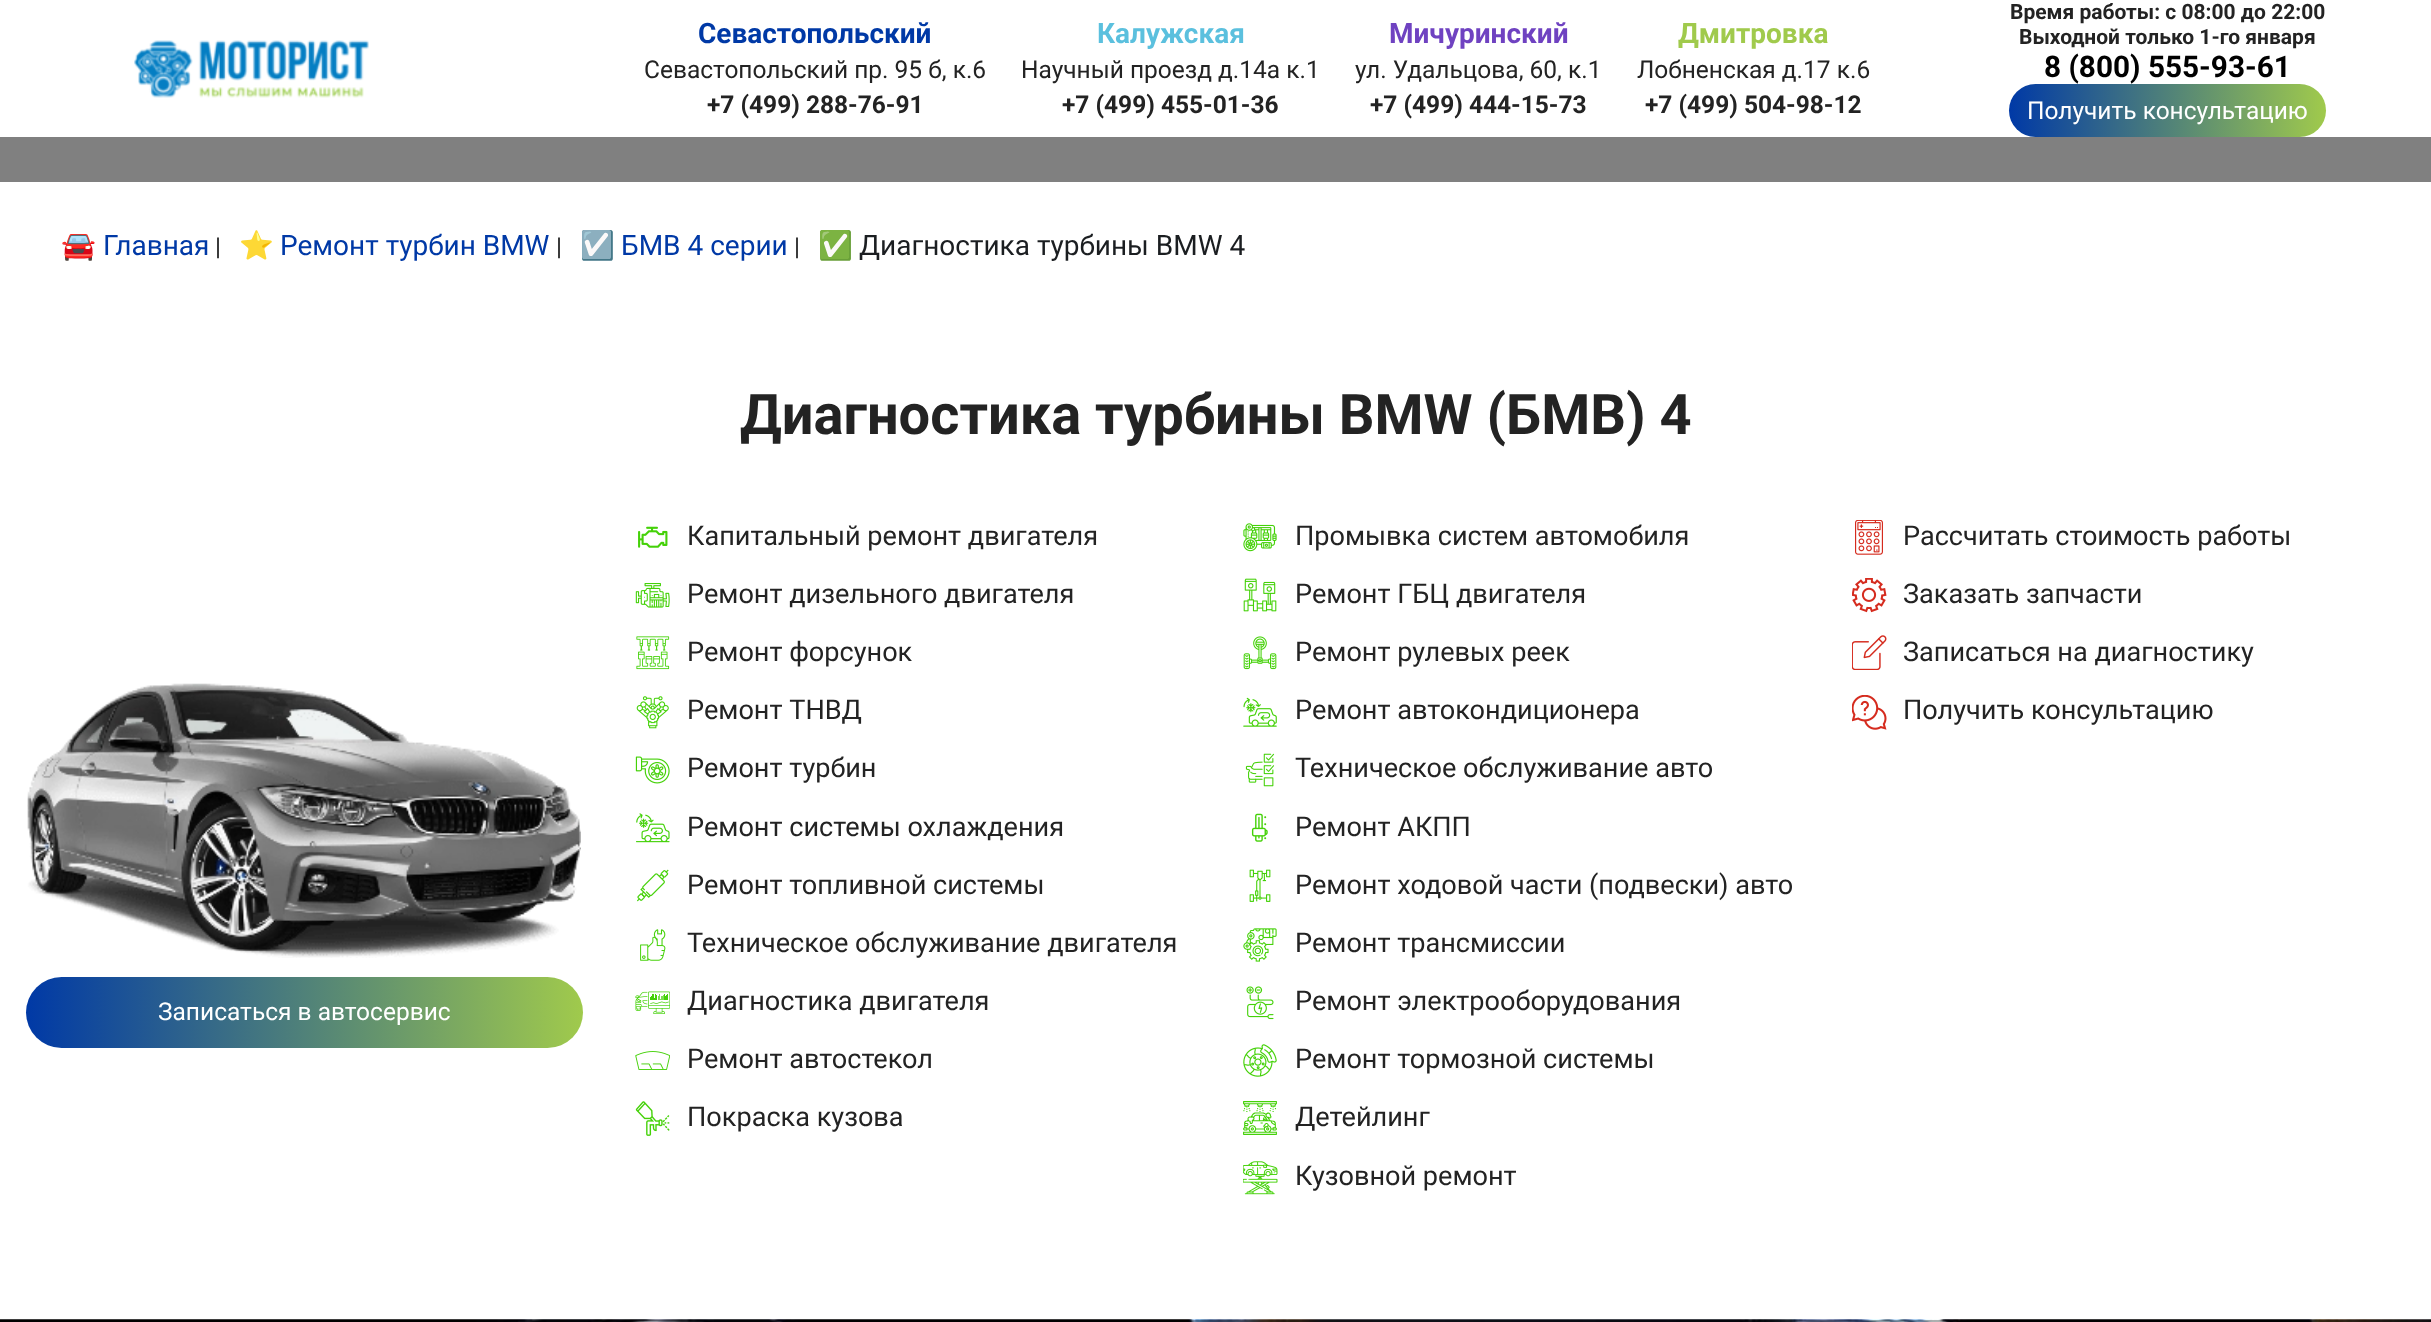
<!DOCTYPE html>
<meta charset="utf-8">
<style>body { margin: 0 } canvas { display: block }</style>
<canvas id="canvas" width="2431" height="1322"></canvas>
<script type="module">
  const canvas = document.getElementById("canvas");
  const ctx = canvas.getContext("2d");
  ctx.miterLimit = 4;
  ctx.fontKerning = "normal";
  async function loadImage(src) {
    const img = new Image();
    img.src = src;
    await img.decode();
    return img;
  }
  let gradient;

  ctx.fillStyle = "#ffffff";
  ctx.fillRect(0, 0, 2431, 1322);
  ctx.drawImage(await loadImage("img1.png"), 134, 40, 235, 58);
  ctx.font = "bold 28px Roboto";
  ctx.fillStyle = "#0039a6";
  ctx.fillText("Севастопольский", 698, 43);
  ctx.font = "24.5px Roboto";
  ctx.fillStyle = "#232323";
  ctx.fillText("Севастопольский пр. 95 б, к.6", 644, 78);
  ctx.font = "bold 24.5px Roboto";
  ctx.fillText("+7 (499) 288-76-91", 707, 113);
  ctx.font = "bold 28px Roboto";
  ctx.fillStyle = "#5bc0de";
  ctx.fillText("Калужская", 1097, 43);
  ctx.font = "24.5px Roboto";
  ctx.fillStyle = "#232323";
  ctx.fillText("Научный проезд д.14а к.1", 1021, 78);
  ctx.font = "bold 24.5px Roboto";
  ctx.fillText("+7 (499) 455-01-36", 1062, 113);
  ctx.font = "bold 28px Roboto";
  ctx.fillStyle = "#6f42c1";
  ctx.fillText("Мичуринский", 1389, 43);
  ctx.font = "24.5px Roboto";
  ctx.fillStyle = "#232323";
  ctx.fillText("ул. Удальцова, 60, к.1", 1355, 78);
  ctx.font = "bold 24.5px Roboto";
  ctx.fillText("+7 (499) 444-15-73", 1370, 113);
  ctx.font = "bold 28px Roboto";
  ctx.fillStyle = "#a0ca4c";
  ctx.fillText("Дмитровка", 1678, 43);
  ctx.font = "24.5px Roboto";
  ctx.fillStyle = "#232323";
  ctx.fillText("Лобненская д.17 к.6", 1637, 78);
  ctx.font = "bold 24.5px Roboto";
  ctx.fillText("+7 (499) 504-98-12", 1645, 113);
  ctx.font = "bold 21px Roboto";
  ctx.fillText("Время работы: с 08:00 до 22:00", 2010, 19);
  ctx.fillText("Выходной только 1-го января", 2019, 44);
  ctx.font = "bold 29.75px Roboto";
  ctx.fillStyle = "#000000";
  ctx.fillText("8 (800) 555-93-61", 2044, 77);
  gradient = ctx.createLinearGradient(2009, 110, 2326, 110);
  gradient.addColorStop(0, "#0039a6");
  gradient.addColorStop(1, "#a0ca4c");
  ctx.fillStyle = gradient;
  ctx.beginPath();
  ctx.roundRect(2009, 84, 317, 53, 26.5);
  ctx.fill();
  ctx.font = "24.5px Roboto";
  ctx.fillStyle = "#ffffff";
  ctx.fillText("Получить консультацию", 2027, 119);
  ctx.fillStyle = "#808080";
  ctx.fillRect(0, 137, 2431, 45);
  ctx.font = "28px Noto Color Emoji";
  ctx.fillStyle = "#0039a6";
  ctx.fillText("🚘", 61, 255);
  ctx.font = "28px Roboto";
  ctx.fillText("Главная", 103, 255);
  ctx.font = "24.5px Roboto";
  ctx.fillStyle = "#232323";
  ctx.fillText("|", 215, 255);
  ctx.font = "28px Noto Color Emoji";
  ctx.fillStyle = "#0039a6";
  ctx.fillText("⭐", 239, 255);
  ctx.font = "28px Roboto";
  ctx.fillText("Ремонт турбин BMW", 280, 255);
  ctx.font = "24.5px Roboto";
  ctx.fillStyle = "#232323";
  ctx.fillText("|", 556, 255);
  ctx.font = "28px Noto Color Emoji";
  ctx.fillStyle = "#0039a6";
  ctx.fillText("☑️", 580, 255);
  ctx.font = "28px Roboto";
  ctx.fillText("БМВ 4 серии", 621, 255);
  ctx.font = "24.5px Roboto";
  ctx.fillStyle = "#232323";
  ctx.fillText("|", 794, 255);
  ctx.font = "28px Noto Color Emoji";
  ctx.fillStyle = "#1b1e21";
  ctx.fillText("✅", 818, 255);
  ctx.font = "28px Roboto";
  ctx.fillText("Диагностика турбины BMW 4", 859, 255);
  ctx.font = "bold 56px Roboto";
  ctx.fillStyle = "#232323";
  ctx.fillText("Диагностика турбины BMW (БМВ) 4", 740, 434);
  ctx.drawImage(await loadImage("img2.png"), 27, 683, 554, 275);
  gradient = ctx.createLinearGradient(26, 1012, 583, 1012);
  gradient.addColorStop(0, "#0039a6");
  gradient.addColorStop(1, "#a0ca4c");
  ctx.fillStyle = gradient;
  ctx.beginPath();
  ctx.roundRect(26, 977, 557, 71, 35.5);
  ctx.fill();
  ctx.font = "24.5px Roboto";
  ctx.fillStyle = "#ffffff";
  ctx.fillText("Записаться в автосервис", 158, 1020);
  ctx.drawImage(await loadImage("img3.png"), 638, 526, 30, 22);
  ctx.font = "27.1px Roboto";
  ctx.fillStyle = "#232323";
  ctx.fillText("Капитальный ремонт двигателя", 687, 545);
  ctx.drawImage(await loadImage("img4.png"), 635, 583, 35, 25);
  ctx.fillText("Ремонт дизельного двигателя", 687, 603);
  ctx.drawImage(await loadImage("img5.png"), 636, 636, 34, 34);
  ctx.fillText("Ремонт форсунок", 687, 661);
  ctx.drawImage(await loadImage("img6.png"), 636, 696, 33, 33);
  ctx.fillText("Ремонт ТНВД", 687, 719);
  ctx.drawImage(await loadImage("img7.png"), 635, 756, 35, 28);
  ctx.fillText("Ремонт турбин", 687, 777);
  ctx.drawImage(await loadImage("img8.png"), 636, 813, 34, 30);
  ctx.fillText("Ремонт системы охлаждения", 687, 836);
  ctx.drawImage(await loadImage("img9.png"), 637, 869, 32, 33);
  ctx.fillText("Ремонт топливной системы", 687, 894);
  ctx.drawImage(await loadImage("img10.png"), 640, 929, 26, 32);
  ctx.fillText("Техническое обслуживание двигателя", 687, 952);
  ctx.drawImage(await loadImage("img11.png"), 635, 991, 35, 23);
  ctx.fillText("Диагностика двигателя", 687, 1010);
  ctx.drawImage(await loadImage("img12.png"), 635, 1051, 35, 19);
  ctx.fillText("Ремонт автостекол", 687, 1068);
  ctx.drawImage(await loadImage("img13.png"), 635, 1101, 35, 35);
  ctx.fillText("Покраска кузова", 687, 1126);
  ctx.drawImage(await loadImage("img14.png"), 1243, 523, 34, 29);
  ctx.fillText("Промывка систем автомобиля", 1295, 545);
  ctx.drawImage(await loadImage("img15.png"), 1243, 578, 34, 34);
  ctx.fillText("Ремонт ГБЦ двигателя", 1295, 603);
  ctx.drawImage(await loadImage("img16.png"), 1243, 636, 34, 34);
  ctx.fillText("Ремонт рулевых реек", 1295, 661);
  ctx.drawImage(await loadImage("img17.png"), 1243, 697, 34, 30);
  ctx.fillText("Ремонт автокондиционера", 1295, 719);
  ctx.drawImage(await loadImage("img18.png"), 1245, 753, 30, 34);
  ctx.fillText("Техническое обслуживание авто", 1295, 777);
  ctx.drawImage(await loadImage("img19.png"), 1251, 813, 17, 29);
  ctx.fillText("Ремонт АКПП", 1295, 836);
  ctx.drawImage(await loadImage("img20.png"), 1249, 869, 22, 33);
  ctx.fillText("Ремонт ходовой части (подвески) авто", 1295, 894);
  ctx.drawImage(await loadImage("img21.png"), 1243, 928, 34, 34);
  ctx.fillText("Ремонт трансмиссии", 1295, 952);
  ctx.drawImage(await loadImage("img22.png"), 1246, 986, 28, 34);
  ctx.fillText("Ремонт электрооборудования", 1295, 1010);
  ctx.drawImage(await loadImage("img23.png"), 1243, 1044, 34, 33);
  ctx.fillText("Ремонт тормозной системы", 1295, 1068);
  ctx.drawImage(await loadImage("img24.png"), 1243, 1101, 34, 34);
  ctx.fillText("Детейлинг", 1295, 1126);
  ctx.drawImage(await loadImage("img25.png"), 1243, 1161, 35, 34);
  ctx.fillText("Кузовной ремонт", 1295, 1185);
  ctx.drawImage(await loadImage("img26.png"), 1855, 520, 28, 35);
  ctx.fillText("Рассчитать стоимость работы", 1903, 545);
  ctx.drawImage(await loadImage("img27.png"), 1852, 578, 35, 35);
  ctx.fillText("Заказать запчасти", 1903, 603);
  ctx.drawImage(await loadImage("img28.png"), 1852, 635, 35, 35);
  ctx.fillText("Записаться на диагностику", 1903, 661);
  ctx.drawImage(await loadImage("img29.png"), 1852, 695, 35, 35);
  ctx.fillText("Получить консультацию", 1903, 719);
  ctx.drawImage(await loadImage("img30.png"), 0, 1319, 2431, 3);
  ctx.fillStyle = "rgba(0, 0, 0, 0.3)";
  ctx.fillRect(516, 1320, 1915, 2);
</script>
